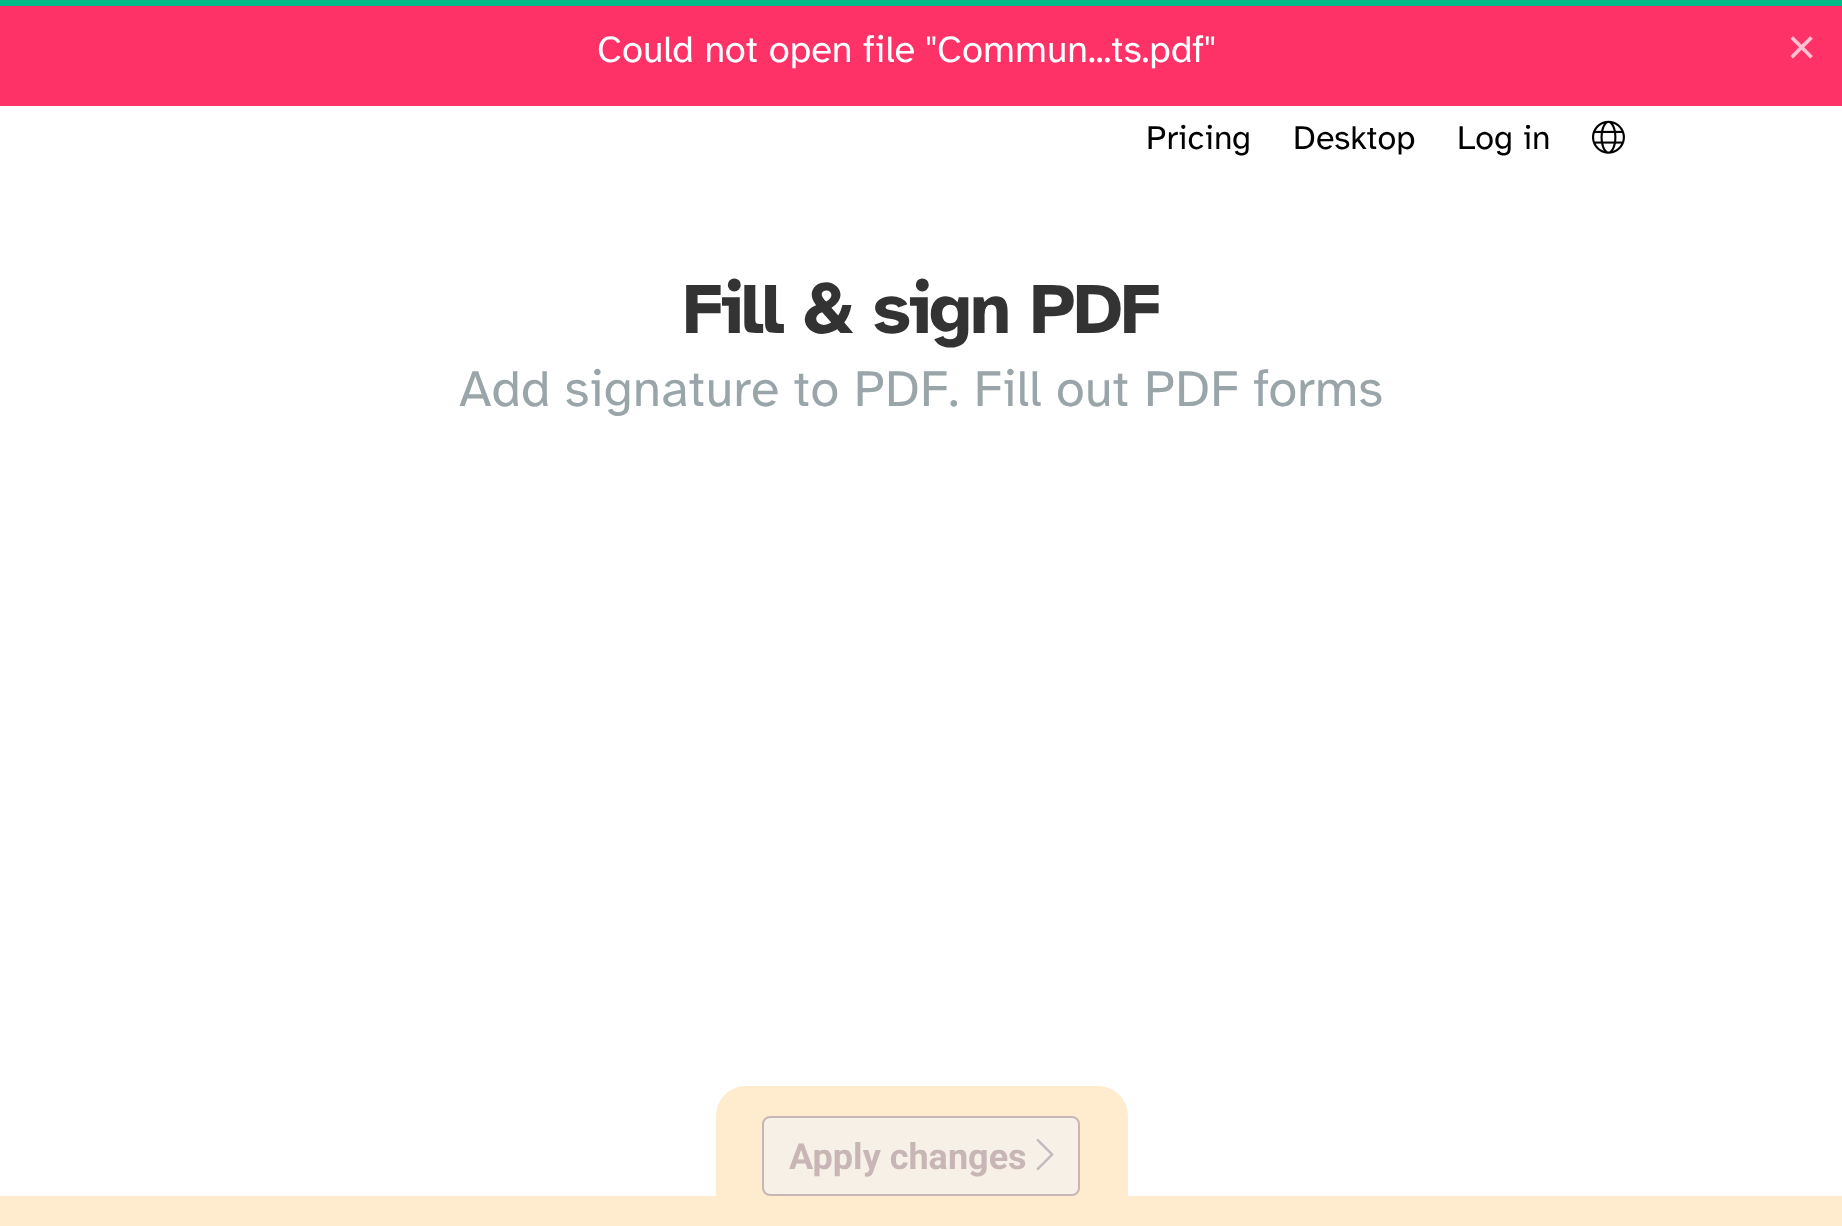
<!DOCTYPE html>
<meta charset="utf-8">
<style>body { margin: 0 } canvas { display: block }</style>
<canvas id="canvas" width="1842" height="1226"></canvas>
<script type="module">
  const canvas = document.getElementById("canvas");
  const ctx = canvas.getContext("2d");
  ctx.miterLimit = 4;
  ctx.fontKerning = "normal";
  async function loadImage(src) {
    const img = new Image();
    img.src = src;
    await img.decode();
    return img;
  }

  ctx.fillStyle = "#ffffff";
  ctx.fillRect(0, 0, 1842, 1226);
  ctx.fillStyle = "#ff3268";
  ctx.fillRect(0, 6, 1842, 100);
  ctx.font = "38px Atkinson Hyperlegible";
  ctx.fillStyle = "#ffffff";
  ctx.fillText("Could not open file \"Commun...ts.pdf\"", 597, 62);
  ctx.font = "50px Liberation Sans";
  ctx.fillStyle = "#ffc2d2";
  ctx.fillText("×", 1787, 64);
  ctx.font = "34px Atkinson Hyperlegible";
  ctx.fillStyle = "#000000";
  ctx.fillText("Pricing", 1146, 149);
  ctx.fillText("Desktop", 1293, 149);
  ctx.fillText("Log in", 1457, 149);
  ctx.drawImage(await loadImage("img1.png"), 1592, 120, 33, 34);
  ctx.fillStyle = "#00bb88";
  ctx.fillRect(0, 0, 1842, 6);
  ctx.letterSpacing = "-2px";
  ctx.font = "bold 72px Atkinson Hyperlegible";
  ctx.fillStyle = "#333333";
  ctx.fillText("Fill & sign PDF", 683, 333);
  ctx.letterSpacing = "0px";
  ctx.font = "52px Atkinson Hyperlegible";
  ctx.fillStyle = "#9aa5aa";
  ctx.fillText("Add signature to PDF. Fill out PDF forms", 459, 406);
  ctx.fillStyle = "#ffeccf";
  ctx.fillRect(0, 1196, 1842, 30);
  ctx.beginPath();
  ctx.roundRect(716, 1086, 412, 110, [30, 30, 0, 0]);
  ctx.fill();
  ctx.fillStyle = "#f7f0e6";
  ctx.beginPath();
  ctx.roundRect(763, 1117, 316, 78, 7);
  ctx.fill();
  ctx.strokeStyle = "#c8b6b7";
  ctx.lineWidth = 2;
  ctx.stroke();
  ctx.font = "bold 36px Roboto";
  ctx.fillStyle = "#c8b6b7";
  ctx.fillText("Apply changes", 789, 1169);
  ctx.drawImage(await loadImage("img2.png"), 1036, 1139, 18, 31);
</script>
